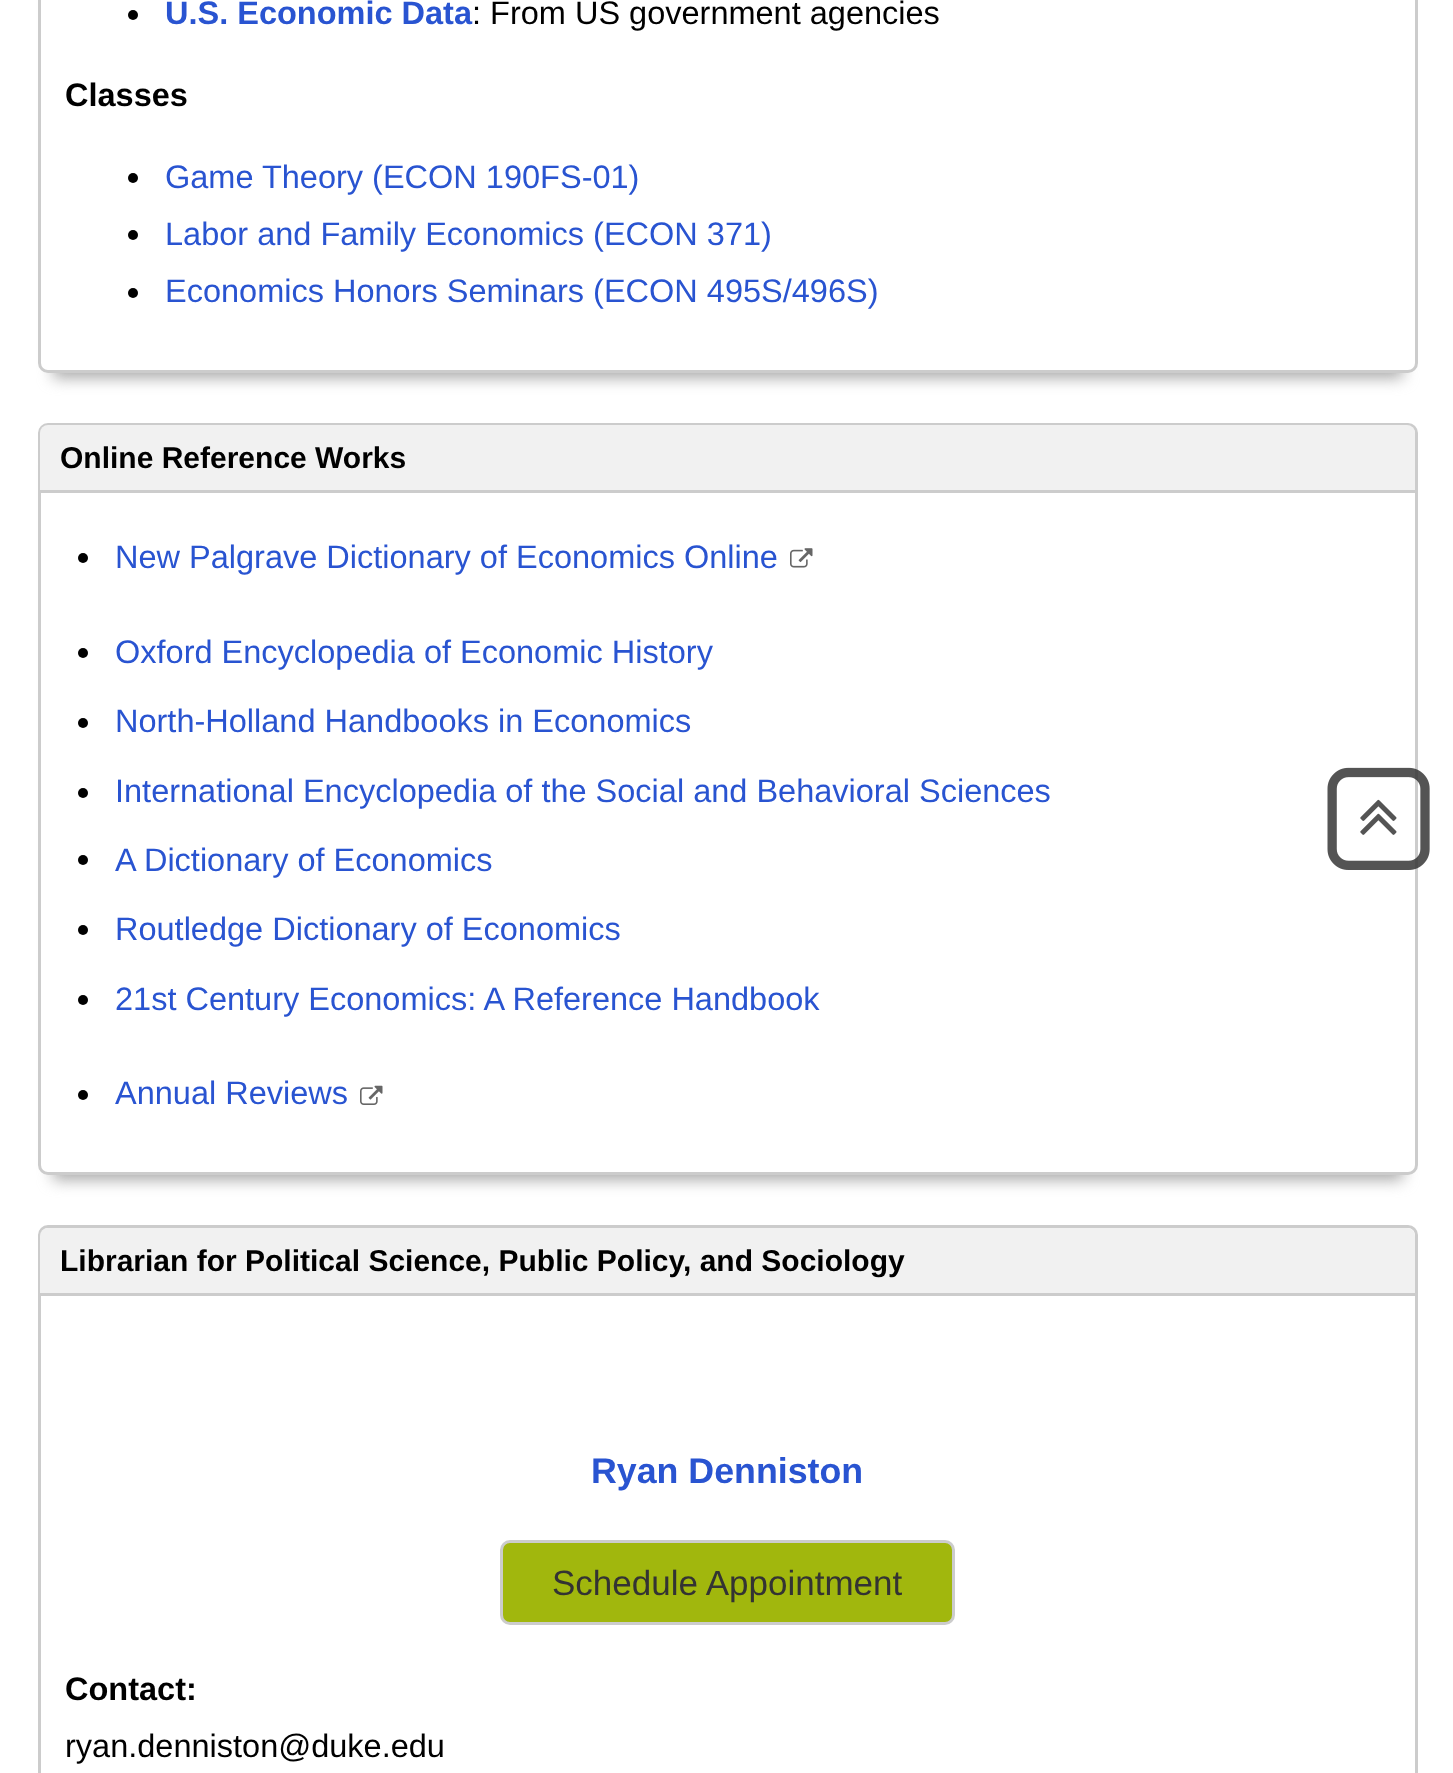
<!DOCTYPE html>
<meta charset="utf-8">
<style>body { margin: 0 } canvas { display: block }</style>
<canvas id="canvas" width="1453" height="1773"></canvas>
<script type="module">
  const canvas = document.getElementById("canvas");
  const ctx = canvas.getContext("2d");
  ctx.miterLimit = 4;
  ctx.fontKerning = "normal";
  async function loadImage(src) {
    const img = new Image();
    img.src = src;
    await img.decode();
    return img;
  }

  ctx.fillStyle = "#ffffff";
  ctx.fillRect(0, 0, 1453, 1773);
  ctx.fillStyle = "#aaaaaa";
  ctx.filter = "blur(7.5px)";
  ctx.beginPath();
  ctx.rect(53, -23, 1350, 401);
  ctx.fill();
  ctx.filter = "none";
  ctx.fillStyle = "#ffffff";
  ctx.beginPath();
  ctx.roundRect(39.5, -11.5, 1377, 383, 8.5);
  ctx.fill();
  ctx.strokeStyle = "#cccccc";
  ctx.lineWidth = 3;
  ctx.stroke();
  ctx.fillStyle = "#000000";
  ctx.beginPath();
  ctx.arc(133, 15, 5, 0, Math.PI * 2);
  ctx.fill();
  ctx.font = "bold 32.5px Liberation Sans";
  ctx.fillStyle = "#2954d1";
  ctx.fillText("U.S. Economic Data", 165, 24);
  ctx.font = "32.5px Liberation Sans";
  ctx.fillStyle = "#000000";
  ctx.fillText(": From US government agencies", 472, 24);
  ctx.font = "bold 32.5px Liberation Sans";
  ctx.fillText("Classes", 65, 106);
  ctx.beginPath();
  ctx.arc(133, 178, 5, 0, Math.PI * 2);
  ctx.fill();
  ctx.font = "32.5px Liberation Sans";
  ctx.fillStyle = "#2954d1";
  ctx.fillText("Game Theory (ECON 190FS-01)", 165, 188);
  ctx.fillStyle = "#000000";
  ctx.beginPath();
  ctx.arc(133, 235, 5, 0, Math.PI * 2);
  ctx.fill();
  ctx.fillStyle = "#2954d1";
  ctx.fillText("Labor and Family Economics (ECON 371)", 165, 245);
  ctx.fillStyle = "#000000";
  ctx.beginPath();
  ctx.arc(133, 293, 5, 0, Math.PI * 2);
  ctx.fill();
  ctx.fillStyle = "#2954d1";
  ctx.fillText("Economics Honors Seminars (ECON 495S/496S)", 165, 302);
  ctx.fillStyle = "#aaaaaa";
  ctx.filter = "blur(7.5px)";
  ctx.beginPath();
  ctx.rect(53, 458, 1350, 722);
  ctx.fill();
  ctx.filter = "none";
  ctx.fillStyle = "#ffffff";
  ctx.beginPath();
  ctx.roundRect(39.5, 424.5, 1377, 749, 8.5);
  ctx.fill();
  ctx.stroke();
  ctx.fillStyle = "#f1f1f1";
  ctx.beginPath();
  ctx.roundRect(40, 425, 1375, 68, [8, 8, 0, 0]);
  ctx.fill();
  ctx.fillStyle = "#cccccc";
  ctx.fillRect(40, 490, 1375, 3);
  ctx.font = "bold 30px Liberation Sans";
  ctx.fillStyle = "#000000";
  ctx.fillText("Online Reference Works", 60, 468);
  ctx.beginPath();
  ctx.arc(83, 558, 5, 0, Math.PI * 2);
  ctx.fill();
  ctx.font = "32.5px Liberation Sans";
  ctx.fillStyle = "#2954d1";
  ctx.fillText("New Palgrave Dictionary of Economics Online", 115, 568);
  ctx.drawImage(await loadImage("img1.png"), 790, 548, 23, 20);
  ctx.fillStyle = "#000000";
  ctx.beginPath();
  ctx.arc(83, 653, 5, 0, Math.PI * 2);
  ctx.fill();
  ctx.fillStyle = "#2954d1";
  ctx.fillText("Oxford Encyclopedia of Economic History", 115, 663);
  ctx.fillStyle = "#000000";
  ctx.beginPath();
  ctx.arc(83, 723, 5, 0, Math.PI * 2);
  ctx.fill();
  ctx.fillStyle = "#2954d1";
  ctx.fillText("North-Holland Handbooks in Economics", 115, 732);
  ctx.fillStyle = "#000000";
  ctx.beginPath();
  ctx.arc(83, 793, 5, 0, Math.PI * 2);
  ctx.fill();
  ctx.fillStyle = "#2954d1";
  ctx.fillText("International Encyclopedia of the Social and Behavioral Sciences", 115, 802);
  ctx.fillStyle = "#000000";
  ctx.beginPath();
  ctx.arc(83, 860, 5, 0, Math.PI * 2);
  ctx.fill();
  ctx.fillStyle = "#2954d1";
  ctx.fillText("A Dictionary of Economics", 115, 871);
  ctx.fillStyle = "#000000";
  ctx.beginPath();
  ctx.arc(83, 930, 5, 0, Math.PI * 2);
  ctx.fill();
  ctx.fillStyle = "#2954d1";
  ctx.fillText("Routledge Dictionary of Economics", 115, 940);
  ctx.fillStyle = "#000000";
  ctx.beginPath();
  ctx.arc(83, 1000, 5, 0, Math.PI * 2);
  ctx.fill();
  ctx.fillStyle = "#2954d1";
  ctx.fillText("21st Century Economics: A Reference Handbook", 115, 1010);
  ctx.fillStyle = "#000000";
  ctx.beginPath();
  ctx.arc(83, 1095, 5, 0, Math.PI * 2);
  ctx.fill();
  ctx.fillStyle = "#2954d1";
  ctx.fillText("Annual Reviews", 115, 1104);
  ctx.drawImage(await loadImage("img2.png"), 360, 1085, 23, 20);
  ctx.beginPath();
  ctx.roundRect(39.5, 1226.5, 1377, 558, 8.5);
  ctx.stroke();
  ctx.fillStyle = "#f1f1f1";
  ctx.beginPath();
  ctx.roundRect(40, 1228, 1375, 67, [8, 8, 0, 0]);
  ctx.fill();
  ctx.fillStyle = "#cccccc";
  ctx.fillRect(40, 1293, 1375, 3);
  ctx.font = "bold 30px Liberation Sans";
  ctx.fillStyle = "#000000";
  ctx.fillText("Librarian for Political Science, Public Policy, and Sociology", 60, 1271);
  ctx.font = "bold 35.75px Liberation Sans";
  ctx.fillStyle = "#2954d1";
  ctx.fillText("Ryan Denniston", 591, 1483);
  ctx.fillStyle = "#a1b70d";
  ctx.beginPath();
  ctx.roundRect(501.5, 1541.5, 452, 82, 8.5);
  ctx.fill();
  ctx.stroke();
  ctx.font = "35px Liberation Sans";
  ctx.fillStyle = "#333333";
  ctx.fillText("Schedule Appointment", 552, 1595);
  ctx.font = "bold 32.5px Liberation Sans";
  ctx.fillStyle = "#000000";
  ctx.fillText("Contact:", 65, 1700);
  ctx.font = "32.5px Liberation Sans";
  ctx.fillText("ryan.denniston@duke.edu", 65, 1757);
  ctx.drawImage(await loadImage("img3.png"), 1327, 767, 103, 103);
  ctx.drawImage(await loadImage("img4.png"), 1360, 799, 37, 36);
</script>
